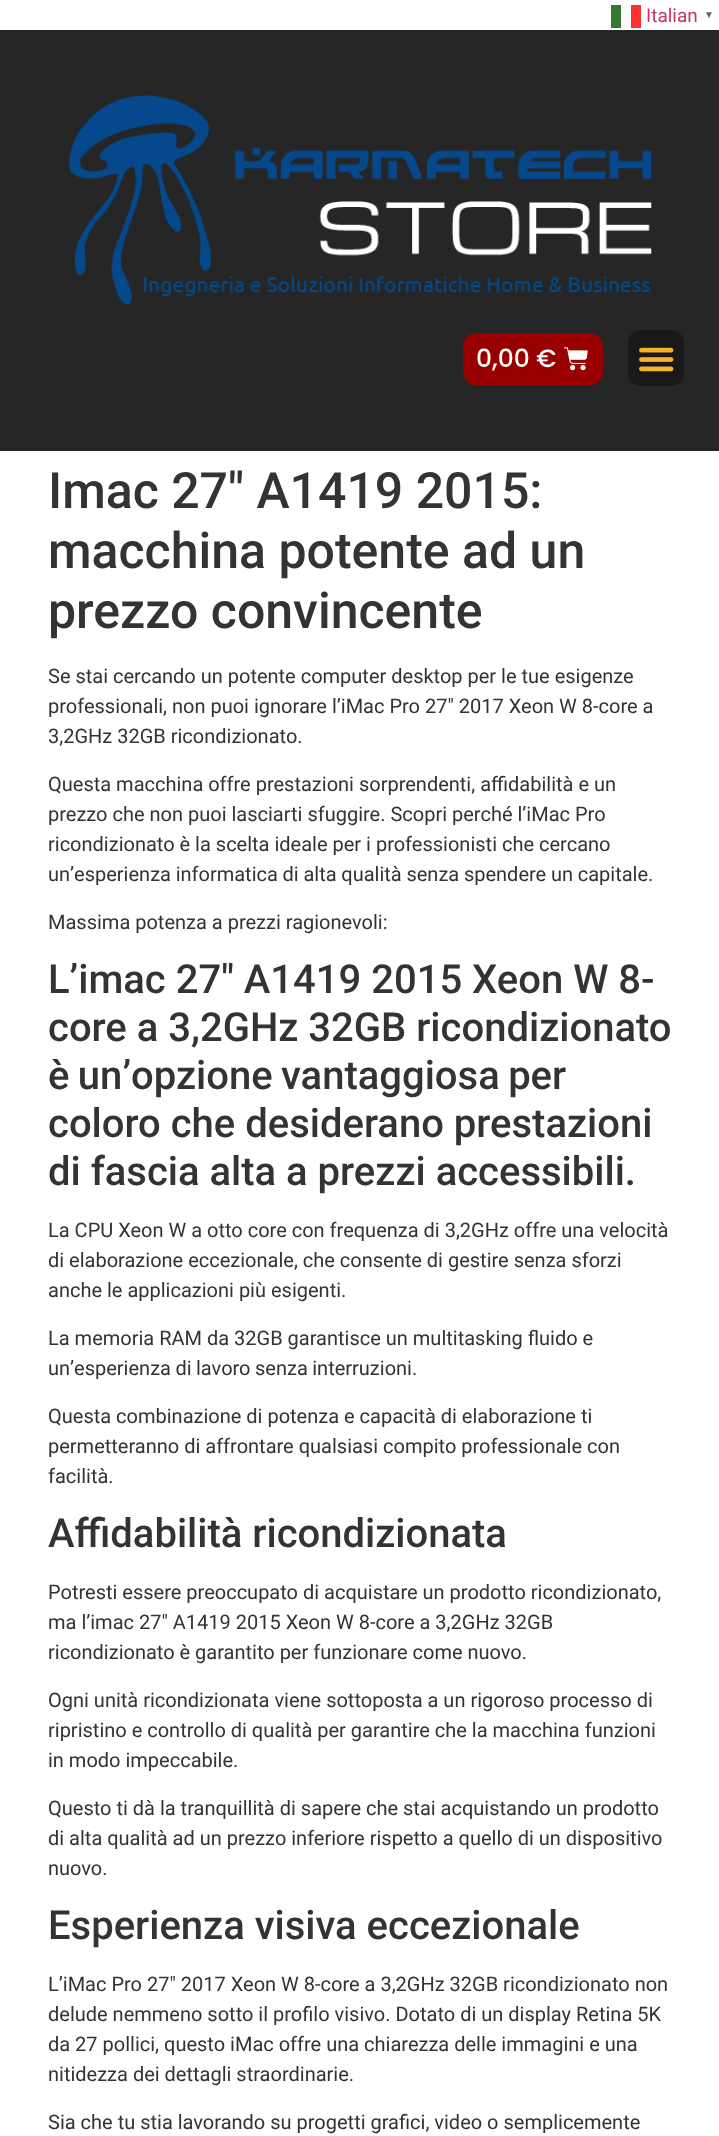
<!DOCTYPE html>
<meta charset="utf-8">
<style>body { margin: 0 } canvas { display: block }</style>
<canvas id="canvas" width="719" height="2136"></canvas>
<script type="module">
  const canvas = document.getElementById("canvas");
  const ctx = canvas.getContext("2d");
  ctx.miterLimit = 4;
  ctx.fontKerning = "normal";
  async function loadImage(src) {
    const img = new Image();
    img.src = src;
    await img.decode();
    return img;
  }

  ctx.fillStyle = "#ffffff";
  ctx.fillRect(0, 0, 719, 2136);
  ctx.font = "19px Roboto";
  ctx.fillStyle = "#cc3366";
  ctx.fillText("Italian", 646, 22);
  ctx.fillStyle = "#337933";
  ctx.fillRect(611, 5, 10, 23);
  ctx.fillStyle = "#fd3333";
  ctx.fillRect(631, 5, 10, 23);
  ctx.font = "bold 10px Liberation Sans";
  ctx.fillStyle = "#666666";
  ctx.fillText("▼", 704, 18);
  ctx.fillStyle = "#262626";
  ctx.fillRect(0, 30, 719, 421);
  ctx.drawImage(await loadImage("img1.png"), 68, 95, 584, 210);
  ctx.fillStyle = "#9b0000";
  ctx.beginPath();
  ctx.roundRect(463.5, 333.5, 139, 51, 12.5);
  ctx.fill();
  ctx.strokeStyle = "#9b0000";
  ctx.stroke();
  ctx.font = "500 25px Poppins";
  ctx.fillStyle = "#ffffff";
  ctx.fillText("0,00 €", 476, 367);
  ctx.drawImage(await loadImage("img2.png"), 564, 347, 24, 24);
  ctx.fillStyle = "#191919";
  ctx.beginPath();
  ctx.roundRect(628, 330, 56, 56, 13);
  ctx.fill();
  ctx.drawImage(await loadImage("img3.png"), 639, 347, 35, 25);
  ctx.font = "500 50px Roboto";
  ctx.fillStyle = "#333333";
  ctx.fillText("Imac 27″ A1419 2015:", 48, 508);
  ctx.fillText("macchina potente ad un", 48, 568);
  ctx.fillText("prezzo convincente", 48, 628);
  ctx.font = "20px Roboto";
  ctx.fillText("Se stai cercando un potente computer desktop per le tue esigenze", 48, 683);
  ctx.fillText("professionali, non puoi ignorare l’iMac Pro 27″ 2017 Xeon W 8-core a", 48, 713);
  ctx.fillText("3,2GHz 32GB ricondizionato.", 48, 743);
  ctx.fillText("Questa macchina offre prestazioni sorprendenti, affidabilità e un", 48, 791);
  ctx.fillText("prezzo che non puoi lasciarti sfuggire. Scopri perché l’iMac Pro", 48, 821);
  ctx.fillText("ricondizionato è la scelta ideale per i professionisti che cercano", 48, 851);
  ctx.wordSpacing = "-0.25px";
  ctx.fillText("un’esperienza informatica di alta qualità senza spendere un capitale.", 48, 881);
  ctx.wordSpacing = "0px";
  ctx.fillText("Massima potenza a prezzi ragionevoli:", 48, 929);
  ctx.font = "500 40px Roboto";
  ctx.fillText("L’imac 27″ A1419 2015 Xeon W 8-", 48, 993);
  ctx.fillText("core a 3,2GHz 32GB ricondizionato", 48, 1041);
  ctx.wordSpacing = "-1.5px";
  ctx.fillText("è un’opzione vantaggiosa per", 48, 1089);
  ctx.wordSpacing = "0px";
  ctx.fillText("coloro che desiderano prestazioni", 48, 1137);
  ctx.fillText("di fascia alta a prezzi accessibili.", 48, 1185);
  ctx.font = "20px Roboto";
  ctx.fillText("La CPU Xeon W a otto core con frequenza di 3,2GHz offre una velocità", 48, 1237);
  ctx.fillText("di elaborazione eccezionale, che consente di gestire senza sforzi", 48, 1267);
  ctx.fillText("anche le applicazioni più esigenti.", 48, 1297);
  ctx.fillText("La memoria RAM da 32GB garantisce un multitasking fluido e", 48, 1345);
  ctx.wordSpacing = "-0.5px";
  ctx.fillText("un’esperienza di lavoro senza interruzioni.", 48, 1375);
  ctx.wordSpacing = "0px";
  ctx.fillText("Questa combinazione di potenza e capacità di elaborazione ti", 48, 1423);
  ctx.fillText("permetteranno di affrontare qualsiasi compito professionale con", 48, 1453);
  ctx.fillText("facilità.", 48, 1483);
  ctx.font = "500 40px Roboto";
  ctx.fillText("Affidabilità ricondizionata", 48, 1547);
  ctx.font = "20px Roboto";
  ctx.fillText("Potresti essere preoccupato di acquistare un prodotto ricondizionato,", 48, 1599);
  ctx.fillText("ma l’imac 27″ A1419 2015 Xeon W 8-core a 3,2GHz 32GB", 48, 1629);
  ctx.fillText("ricondizionato è garantito per funzionare come nuovo.", 48, 1659);
  ctx.fillText("Ogni unità ricondizionata viene sottoposta a un rigoroso processo di", 48, 1707);
  ctx.fillText("ripristino e controllo di qualità per garantire che la macchina funzioni", 48, 1737);
  ctx.fillText("in modo impeccabile.", 48, 1767);
  ctx.fillText("Questo ti dà la tranquillità di sapere che stai acquistando un prodotto", 48, 1815);
  ctx.fillText("di alta qualità ad un prezzo inferiore rispetto a quello di un dispositivo", 48, 1845);
  ctx.fillText("nuovo.", 48, 1875);
  ctx.font = "500 40px Roboto";
  ctx.fillText("Esperienza visiva eccezionale", 48, 1939);
  ctx.font = "20px Roboto";
  ctx.fillText("L’iMac Pro 27″ 2017 Xeon W 8-core a 3,2GHz 32GB ricondizionato non", 48, 1991);
  ctx.fillText("delude nemmeno sotto il profilo visivo. Dotato di un display Retina 5K", 48, 2021);
  ctx.fillText("da 27 pollici, questo iMac offre una chiarezza delle immagini e una", 48, 2051);
  ctx.fillText("nitidezza dei dettagli straordinarie.", 48, 2081);
  ctx.fillText("Sia che tu stia lavorando su progetti grafici, video o semplicemente", 48, 2129);
</script>
